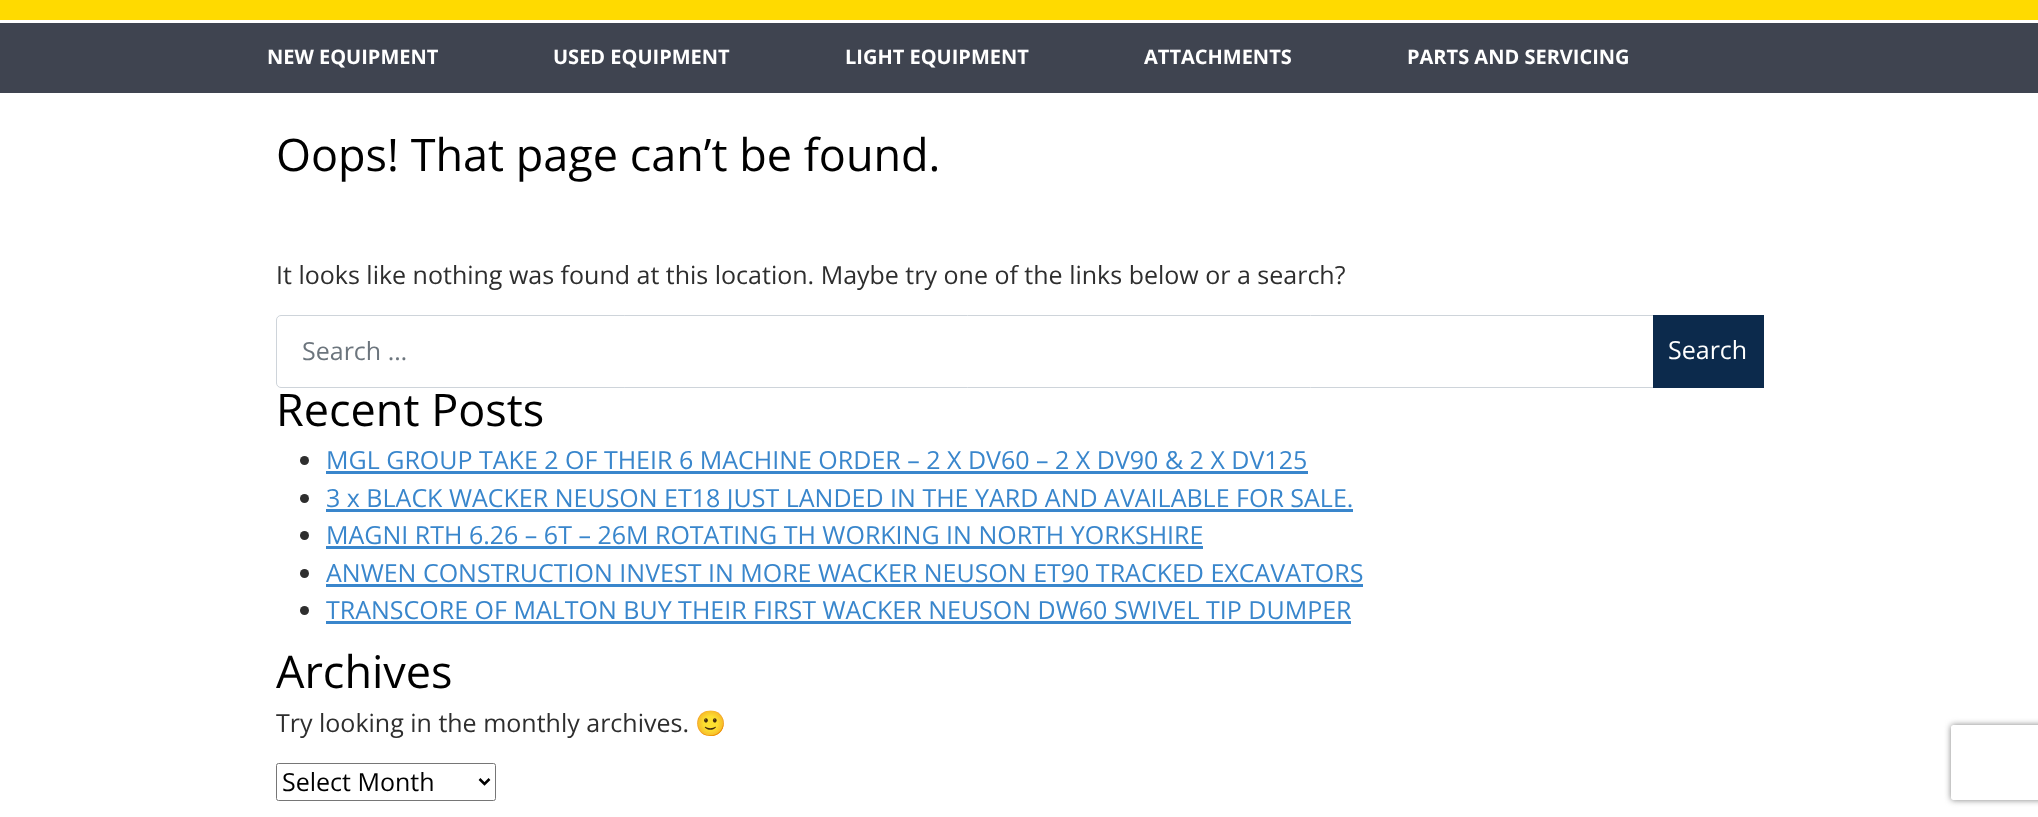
<!DOCTYPE html>
<meta charset="utf-8">
<style>body { margin: 0 } canvas { display: block }</style>
<canvas id="canvas" width="2038" height="817"></canvas>
<script type="module">
  const canvas = document.getElementById("canvas");
  const ctx = canvas.getContext("2d");
  ctx.miterLimit = 4;
  ctx.fontKerning = "normal";

  ctx.fillStyle = "#ffffff";
  ctx.fillRect(0, 0, 2038, 817);
  ctx.fillStyle = "#ffda00";
  ctx.fillRect(0, 0, 2038, 20);
  ctx.fillStyle = "#3f4450";
  ctx.fillRect(0, 23, 2038, 70);
  ctx.font = "bold 20px Open Sans";
  ctx.fillStyle = "#ffffff";
  ctx.fillText("NEW EQUIPMENT", 267, 64);
  ctx.fillText("USED EQUIPMENT", 553, 64);
  ctx.fillText("LIGHT EQUIPMENT", 845, 64);
  ctx.fillText("ATTACHMENTS", 1144, 64);
  ctx.fillText("PARTS AND SERVICING", 1407, 64);
  ctx.font = "45px Open Sans";
  ctx.fillStyle = "#000000";
  ctx.fillText("Oops! That page can’t be found.", 276, 171);
  ctx.font = "25px Open Sans";
  ctx.fillStyle = "#2e2e2e";
  ctx.fillText("It looks like nothing was found at this location. Maybe try one of the links below or a search?", 276, 284);
  ctx.beginPath();
  ctx.roundRect(276.5, 315.5, 1377, 72, [4.5, 0, 0, 4.5]);
  ctx.strokeStyle = "#ced4da";
  ctx.stroke();
  ctx.fillStyle = "#6c757d";
  ctx.fillText("Search …", 302, 360);
  ctx.fillStyle = "#0c2a4c";
  ctx.fillRect(1653, 315, 111, 73);
  ctx.fillStyle = "#ffffff";
  ctx.fillText("Search", 1668, 359);
  ctx.font = "45px Open Sans";
  ctx.fillStyle = "#000000";
  ctx.fillText("Recent Posts", 276, 426);
  ctx.fillStyle = "#2e2e2e";
  ctx.beginPath();
  ctx.arc(304.5, 460.5, 4.5, 0, Math.PI * 2);
  ctx.fill();
  ctx.font = "25px Open Sans";
  ctx.fillStyle = "#3986cc";
  ctx.fillText("MGL GROUP TAKE 2 OF THEIR 6 MACHINE ORDER – 2 X DV60 – 2 X DV90 & 2 X DV125", 326, 469);
  ctx.fillRect(326, 471, 982, 3);
  ctx.fillStyle = "#2e2e2e";
  ctx.beginPath();
  ctx.arc(304.5, 498.5, 4.5, 0, Math.PI * 2);
  ctx.fill();
  ctx.fillStyle = "#3986cc";
  ctx.fillRect(326, 509, 1027, 3);
  ctx.fillText("3 x BLACK WACKER NEUSON ET18 JUST LANDED IN THE YARD AND AVAILABLE FOR SALE.", 326, 507);
  ctx.fillStyle = "#2e2e2e";
  ctx.beginPath();
  ctx.arc(304.5, 535.5, 4.5, 0, Math.PI * 2);
  ctx.fill();
  ctx.fillStyle = "#3986cc";
  ctx.fillText("MAGNI RTH 6.26 – 6T – 26M ROTATING TH WORKING IN NORTH YORKSHIRE", 326, 544);
  ctx.fillRect(326, 546, 877, 3);
  ctx.fillStyle = "#2e2e2e";
  ctx.beginPath();
  ctx.arc(304.5, 573.5, 4.5, 0, Math.PI * 2);
  ctx.fill();
  ctx.fillStyle = "#3986cc";
  ctx.fillText("ANWEN CONSTRUCTION INVEST IN MORE WACKER NEUSON ET90 TRACKED EXCAVATORS", 326, 582);
  ctx.fillRect(326, 584, 1037, 3);
  ctx.fillStyle = "#2e2e2e";
  ctx.beginPath();
  ctx.arc(304.5, 610.5, 4.5, 0, Math.PI * 2);
  ctx.fill();
  ctx.fillStyle = "#3986cc";
  ctx.fillText("TRANSCORE OF MALTON BUY THEIR FIRST WACKER NEUSON DW60 SWIVEL TIP DUMPER", 326, 619);
  ctx.fillRect(326, 621, 1025, 3);
  ctx.font = "45px Open Sans";
  ctx.fillStyle = "#000000";
  ctx.fillText("Archives", 276, 688);
  ctx.font = "25px Open Sans";
  ctx.fillStyle = "#2e2e2e";
  ctx.fillText("Try looking in the monthly archives.", 276, 732);
  ctx.font = "25px Noto Color Emoji";
  ctx.fillText("🙂", 695, 732);
  ctx.beginPath();
  ctx.roundRect(276.5, 763.5, 219, 37, 2);
  ctx.strokeStyle = "#767676";
  ctx.stroke();
  ctx.beginPath();
  ctx.moveTo(479.5, 779);
  ctx.lineTo(484.5, 784);
  ctx.lineTo(489.5, 779);
  ctx.strokeStyle = "#000000";
  ctx.lineWidth = 2.5;
  ctx.stroke();
  ctx.font = "25px Open Sans";
  ctx.fillStyle = "#000000";
  ctx.fillText("Select Month", 282, 791);
  ctx.save();
  ctx.beginPath();
  ctx.moveTo(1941, 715);
  ctx.lineTo(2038, 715);
  ctx.lineTo(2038, 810);
  ctx.lineTo(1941, 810);
  ctx.closePath();
  ctx.moveTo(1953.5, 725);
  ctx.lineTo(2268.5, 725);
  ctx.bezierCurveTo(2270, 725, 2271, 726, 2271, 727.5);
  ctx.lineTo(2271, 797.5);
  ctx.bezierCurveTo(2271, 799, 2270, 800, 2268.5, 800);
  ctx.lineTo(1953.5, 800);
  ctx.bezierCurveTo(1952, 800, 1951, 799, 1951, 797.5);
  ctx.lineTo(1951, 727.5);
  ctx.bezierCurveTo(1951, 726, 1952, 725, 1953.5, 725);
  ctx.closePath();
  ctx.clip("evenodd");
  ctx.fillStyle = "#808080";
  ctx.filter = "blur(3px)";
  ctx.beginPath();
  ctx.roundRect(1951, 725, 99, 75, 2.5);
  ctx.fill();
  ctx.filter = "none";
  ctx.restore();
</script>
